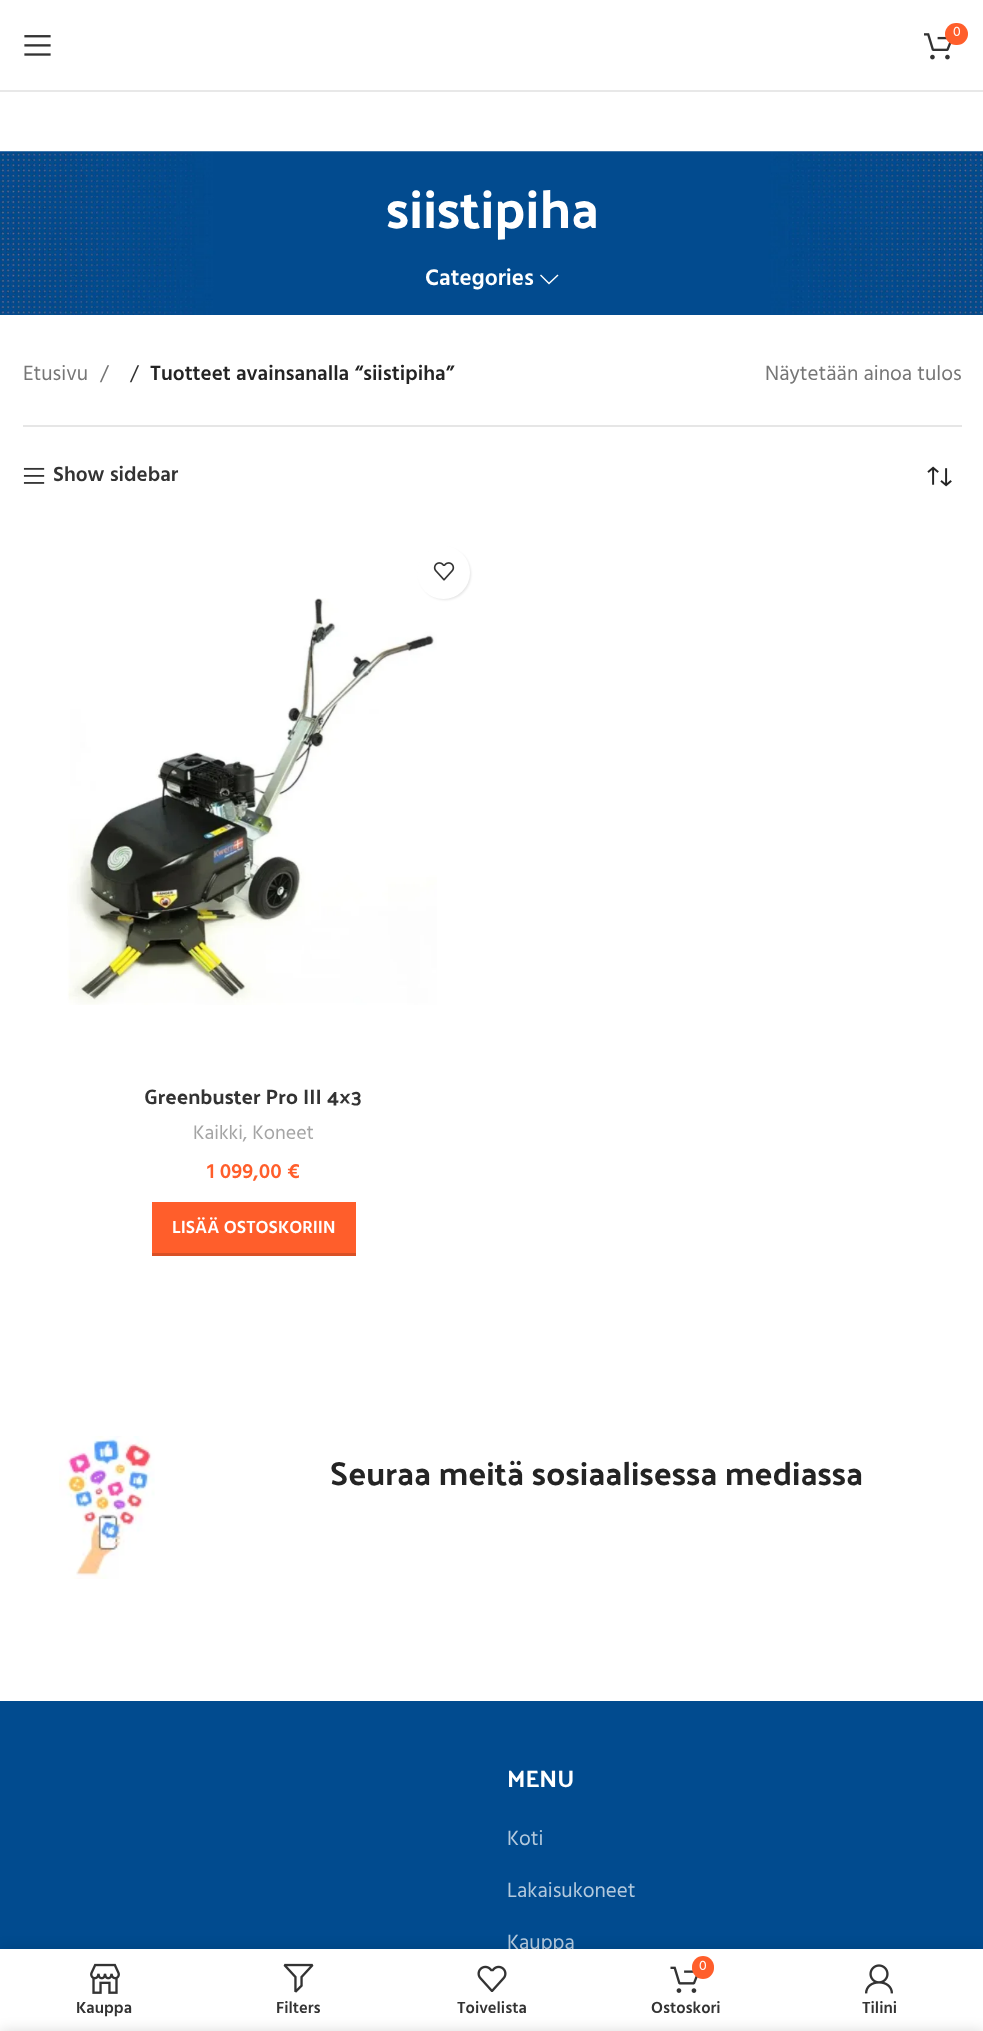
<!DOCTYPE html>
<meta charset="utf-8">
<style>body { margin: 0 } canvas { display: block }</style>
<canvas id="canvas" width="983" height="2031"></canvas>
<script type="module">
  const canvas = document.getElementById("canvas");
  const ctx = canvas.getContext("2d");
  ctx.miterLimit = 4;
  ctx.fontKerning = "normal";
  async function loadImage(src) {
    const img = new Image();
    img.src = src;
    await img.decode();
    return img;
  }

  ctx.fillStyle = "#ffffff";
  ctx.fillRect(0, 0, 983, 2031);
  ctx.fillStyle = "#e8e8e8";
  ctx.fillRect(0, 90, 983, 2);
  ctx.drawImage(await loadImage("img1.png"), 924, 33, 28, 27);
  ctx.fillStyle = "#ff5e2b";
  ctx.beginPath();
  ctx.roundRect(945, 23, 23, 22, 11);
  ctx.fill();
  ctx.font = "14px Hind";
  ctx.fillStyle = "#ffffff";
  ctx.fillText("0", 953, 36);
  ctx.drawImage(await loadImage("img2.png"), 24, 35, 27, 21);
  ctx.drawImage(await loadImage("img3.png"), 0, 151, 983, 1);
  ctx.drawImage(await loadImage("img4.png"), 0, 151, 983, 164);
  ctx.font = "54px Palanquin Dark";
  ctx.fillText("siistipiha", 386, 228);
  ctx.font = "600 23px Hind";
  ctx.fillText("Categories", 425, 285);
  ctx.beginPath();
  ctx.moveTo(557.5, 274.5);
  ctx.lineTo(549, 282.5);
  ctx.lineTo(541, 274.5);
  ctx.lineTo(540, 275.5);
  ctx.lineTo(549, 284.5);
  ctx.lineTo(558.5, 275.5);
  ctx.closePath();
  ctx.fill();
  ctx.fillStyle = "#e6e6e6";
  ctx.fillRect(23, 425, 939, 2);
  ctx.font = "21px Hind";
  ctx.fillStyle = "#767676";
  ctx.fillText("Etusivu", 23, 380);
  ctx.fillText("/", 100, 380);
  ctx.fillStyle = "#333333";
  ctx.fillText("/", 130, 380);
  ctx.font = "600 21px Hind";
  ctx.fillStyle = "#242424";
  ctx.fillText("Tuotteet avainsanalla “siistipiha”", 150, 380);
  ctx.font = "21px Hind";
  ctx.fillStyle = "#767676";
  ctx.fillText("Näytetään ainoa tulos", 765, 380);
  ctx.drawImage(await loadImage("img5.png"), 23, 467, 22, 17);
  ctx.font = "600 21px Hind";
  ctx.fillStyle = "#333333";
  ctx.fillText("Show sidebar", 53, 481);
  ctx.drawImage(await loadImage("img6.png"), 927, 466, 25, 21);
  ctx.drawImage(await loadImage("img8.png"), 67, 598, 370, 407);
  ctx.fillStyle = "rgba(0, 0, 0, 0.1)";
  ctx.filter = "blur(1px)";
  ctx.beginPath();
  ctx.roundRect(419, 548, 52, 52, 26);
  ctx.fill();
  ctx.filter = "none";
  ctx.fillStyle = "#ffffff";
  ctx.beginPath();
  ctx.arc(443.5, 572.5, 26.5, 0, Math.PI * 2);
  ctx.fill();
  ctx.drawImage(await loadImage("img7.png"), 433, 562, 22, 19);
  ctx.font = "21px Palanquin Dark";
  ctx.fillStyle = "#333333";
  ctx.fillText("Greenbuster Pro III 4×3", 144, 1104);
  ctx.font = "20px Hind";
  ctx.fillStyle = "#a5a5a5";
  ctx.fillText("Kaikki, Koneet", 193, 1139);
  ctx.font = "600 21px Hind";
  ctx.fillStyle = "#ff5e2b";
  ctx.fillText("1 099,00 €", 207, 1178);
  ctx.fillRect(152, 1202, 204, 51);
  ctx.fillStyle = "#d95025";
  ctx.fillRect(152, 1253, 204, 3);
  ctx.font = "600 18px Hind";
  ctx.fillStyle = "#ffffff";
  ctx.fillText("LISÄÄ OSTOSKORIIN", 172, 1233);
  ctx.drawImage(await loadImage("img9.png"), 59, 1436, 96, 143);
  ctx.font = "33px Palanquin Dark";
  ctx.fillStyle = "#242424";
  ctx.fillText("Seuraa meitä sosiaalisessa mediassa", 330, 1485);
  ctx.fillStyle = "#014b8f";
  ctx.fillRect(0, 1701, 983, 248);
  ctx.font = "24px Palanquin Dark";
  ctx.fillStyle = "#ffffff";
  ctx.fillText("MENU", 507, 1787);
  ctx.font = "21px Hind";
  ctx.fillStyle = "#b3c9dd";
  ctx.fillText("Koti", 507, 1845);
  ctx.fillText("Lakaisukoneet", 507, 1897);
  ctx.fillText("Kauppa", 507, 1949);
  ctx.fillStyle = "rgba(0, 0, 0, 0.12)";
  ctx.filter = "blur(7px)";
  ctx.beginPath();
  ctx.rect(0, 1949, 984, 82);
  ctx.fill();
  ctx.filter = "none";
  ctx.fillStyle = "#ffffff";
  ctx.fillRect(0, 1949, 983, 82);
  ctx.drawImage(await loadImage("img10.png"), 90, 1963, 30, 31);
  ctx.font = "600 16.5px Hind";
  ctx.fillStyle = "#333333";
  ctx.fillText("Kauppa", 76, 2013);
  ctx.drawImage(await loadImage("img11.png"), 283, 1963, 31, 30);
  ctx.fillText("Filters", 276, 2013);
  ctx.drawImage(await loadImage("img12.png"), 477, 1965, 30, 27);
  ctx.fillText("Toivelista", 457, 2013);
  ctx.drawImage(await loadImage("img13.png"), 670, 1966, 28, 27);
  ctx.fillStyle = "#ff5e2b";
  ctx.beginPath();
  ctx.roundRect(692, 1956, 22, 23, 11);
  ctx.fill();
  ctx.font = "14px Hind";
  ctx.fillStyle = "#ffffff";
  ctx.fillText("0", 699, 1970);
  ctx.font = "600 16.5px Hind";
  ctx.fillStyle = "#333333";
  ctx.fillText("Ostoskori", 651, 2013);
  ctx.drawImage(await loadImage("img14.png"), 865, 1964, 28, 30);
  ctx.fillText("Tilini", 862, 2013);
  ctx.fillStyle = "rgba(0, 0, 0, 0.14)";
  ctx.filter = "blur(7px)";
  ctx.beginPath();
  ctx.rect(0, 2031, 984, 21);
  ctx.fill();
  ctx.filter = "none";
</script>
